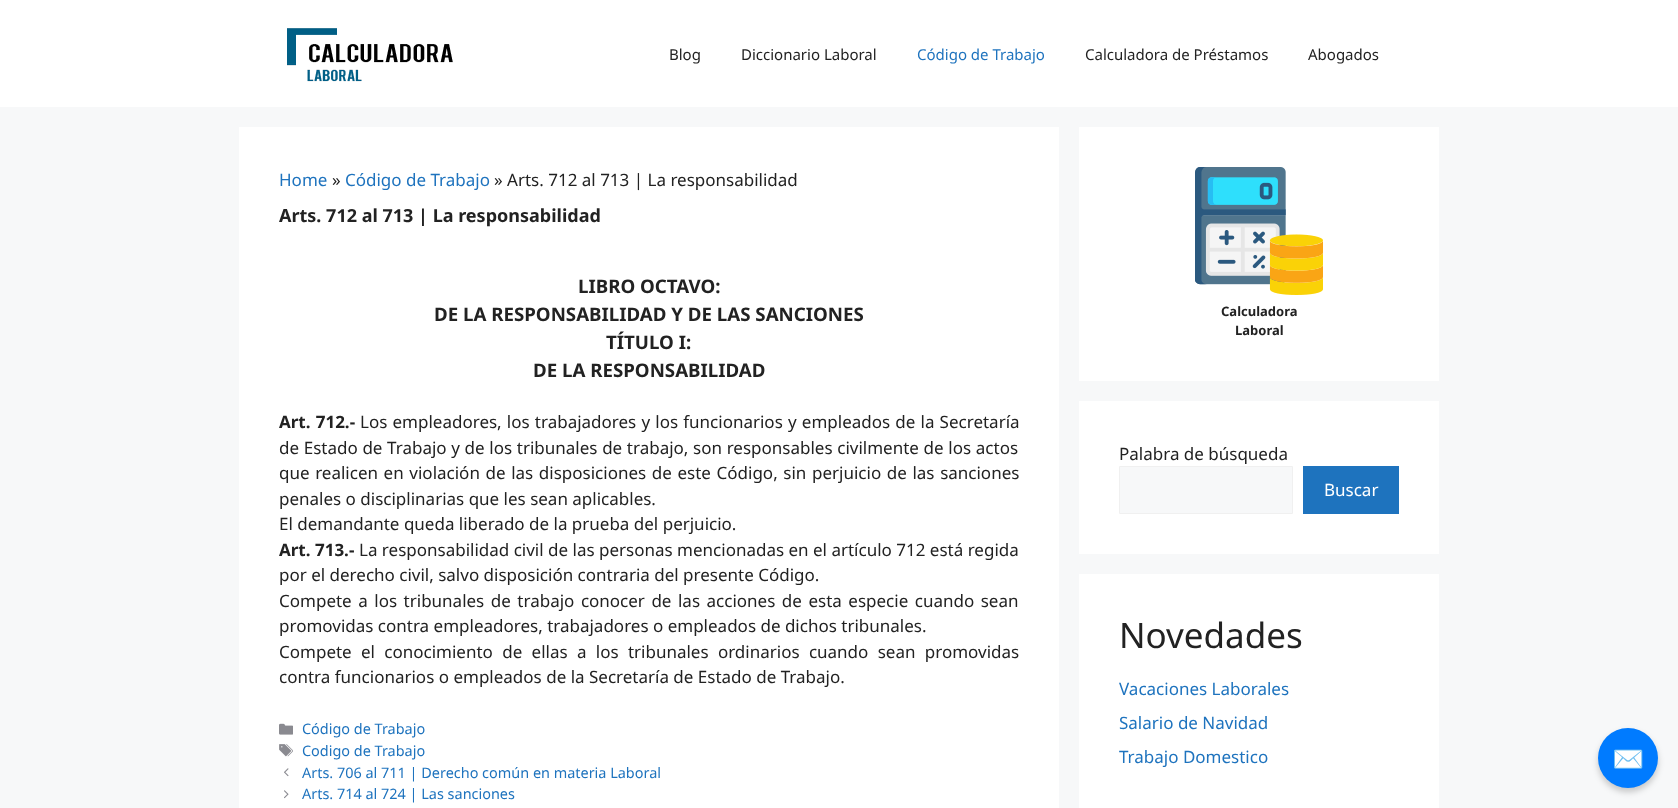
<!DOCTYPE html>
<meta charset="utf-8">
<style>body { margin: 0 } canvas { display: block }</style>
<canvas id="canvas" width="1678" height="808"></canvas>
<script type="module">
  const canvas = document.getElementById("canvas");
  const ctx = canvas.getContext("2d");
  ctx.miterLimit = 4;
  ctx.fontKerning = "normal";
  async function loadImage(src) {
    const img = new Image();
    img.src = src;
    await img.decode();
    return img;
  }

  ctx.fillStyle = "#f7f8f9";
  ctx.fillRect(0, 0, 1678, 808);
  ctx.fillStyle = "#ffffff";
  ctx.fillRect(0, 0, 1678, 107);
  ctx.drawImage(await loadImage("img1.png"), 287, 28, 166, 54);
  ctx.font = "15px Noto Sans";
  ctx.fillStyle = "#222222";
  ctx.fillText("Blog", 669, 60);
  ctx.fillText("Diccionario Laboral", 741, 60);
  ctx.fillStyle = "#1e73be";
  ctx.fillText("Código de Trabajo", 917, 60);
  ctx.fillStyle = "#222222";
  ctx.fillText("Calculadora de Préstamos", 1085, 60);
  ctx.fillText("Abogados", 1308, 60);
  ctx.fillStyle = "#ffffff";
  ctx.fillRect(239, 127, 820, 681);
  ctx.font = "17px Noto Sans";
  ctx.fillStyle = "#1e73be";
  ctx.fillText("Home", 279, 186);
  ctx.fillStyle = "#222222";
  ctx.fillText("»", 332, 186);
  ctx.fillStyle = "#1e73be";
  ctx.fillText("Código de Trabajo", 345, 186);
  ctx.fillStyle = "#222222";
  ctx.fillText("» Arts. 712 al 713 | La responsabilidad", 494, 186);
  ctx.font = "bold 18px Noto Sans";
  ctx.fillText("Arts. 712 al 713 | La responsabilidad", 279, 222);
  ctx.font = "bold 18.7px Noto Sans";
  ctx.fillText("LIBRO OCTAVO:", 578, 293);
  ctx.fillText("DE LA RESPONSABILIDAD Y DE LAS SANCIONES", 434, 321);
  ctx.fillText("TÍTULO I:", 606, 349);
  ctx.fillText("DE LA RESPONSABILIDAD", 533, 377);
  ctx.wordSpacing = "0.75px";
  ctx.font = "bold 17px Noto Sans";
  ctx.fillText("Art. 712.-", 279, 428);
  ctx.font = "17px Noto Sans";
  ctx.fillText("Los empleadores, los trabajadores y los funcionarios y empleados de la Secretaría", 360, 428);
  ctx.wordSpacing = "0.25px";
  ctx.fillText("de Estado de Trabajo y de los tribunales de trabajo, son responsables civilmente de los actos", 279, 454);
  ctx.wordSpacing = "1.2px";
  ctx.fillText("que realicen en violación de las disposiciones de este Código, sin perjuicio de las sanciones", 279, 479);
  ctx.wordSpacing = "0px";
  ctx.fillText("penales o disciplinarias que les sean aplicables.", 279, 505);
  ctx.fillText("El demandante queda liberado de la prueba del perjuicio.", 279, 530);
  ctx.font = "bold 17px Noto Sans";
  ctx.fillText("Art. 713.-", 279, 556);
  ctx.font = "17px Noto Sans";
  ctx.fillText("La responsabilidad civil de las personas mencionadas en el artículo 712 está regida", 359, 556);
  ctx.fillText("por el derecho civil, salvo disposición contraria del presente Código.", 279, 581);
  ctx.wordSpacing = "2.1px";
  ctx.fillText("Compete a los tribunales de trabajo conocer de las acciones de esta especie cuando sean", 279, 607);
  ctx.wordSpacing = "0px";
  ctx.fillText("promovidas contra empleadores, trabajadores o empleados de dichos tribunales.", 279, 632);
  ctx.wordSpacing = "4.9px";
  ctx.fillText("Compete el conocimiento de ellas a los tribunales ordinarios cuando sean promovidas", 279, 658);
  ctx.wordSpacing = "0px";
  ctx.fillText("contra funcionarios o empleados de la Secretaría de Estado de Trabajo.", 279, 683);
  ctx.drawImage(await loadImage("img2.png"), 279, 723, 14, 12);
  ctx.font = "14.45px Noto Sans";
  ctx.fillStyle = "#1e73be";
  ctx.fillText("Código de Trabajo", 302, 734);
  ctx.drawImage(await loadImage("img3.png"), 279, 744, 14, 13);
  ctx.fillText("Codigo de Trabajo", 302, 756);
  ctx.drawImage(await loadImage("img4.png"), 284, 768, 5, 9);
  ctx.fillText("Arts. 706 al 711 | Derecho común en materia Laboral", 302, 778);
  ctx.drawImage(await loadImage("img5.png"), 284, 790, 5, 9);
  ctx.fillText("Arts. 714 al 724 | Las sanciones", 302, 799);
  ctx.fillStyle = "#ffffff";
  ctx.fillRect(1079, 127, 360, 254);
  ctx.drawImage(await loadImage("img6.png"), 1195, 167, 128, 128);
  ctx.font = "bold 13px Noto Sans";
  ctx.fillStyle = "#222222";
  ctx.fillText("Calculadora", 1221, 316);
  ctx.fillText("Laboral", 1235, 335);
  ctx.fillStyle = "#ffffff";
  ctx.fillRect(1079, 401, 360, 153);
  ctx.font = "17px Noto Sans";
  ctx.fillStyle = "#222222";
  ctx.fillText("Palabra de búsqueda", 1119, 460);
  ctx.fillStyle = "#f7f8f9";
  ctx.beginPath();
  ctx.rect(1119.5, 466.5, 173, 47);
  ctx.fill();
  ctx.strokeStyle = "#f0f0f0";
  ctx.stroke();
  ctx.fillStyle = "#1e73be";
  ctx.fillRect(1303, 466, 96, 48);
  ctx.fillStyle = "#ffffff";
  ctx.fillText("Buscar", 1324, 496);
  ctx.fillRect(1079, 574, 360, 234);
  ctx.font = "35px Noto Sans";
  ctx.fillStyle = "#222222";
  ctx.fillText("Novedades", 1119, 648);
  ctx.font = "17px Noto Sans";
  ctx.fillStyle = "#1e73be";
  ctx.fillText("Vacaciones Laborales", 1119, 695);
  ctx.fillText("Salario de Navidad", 1119, 729);
  ctx.fillText("Trabajo Domestico", 1119, 763);
  ctx.fillStyle = "rgba(0, 0, 0, 0.2)";
  ctx.filter = "blur(3px)";
  ctx.beginPath();
  ctx.roundRect(1598, 732, 60, 60, 30);
  ctx.fill();
  ctx.filter = "none";
  ctx.fillStyle = "#007bff";
  ctx.beginPath();
  ctx.arc(1628, 758, 30, 0, Math.PI * 2);
  ctx.fill();
  ctx.font = "26px Noto Color Emoji";
  ctx.fillStyle = "#ffffff";
  ctx.fillText("✉️", 1612, 768);
</script>
